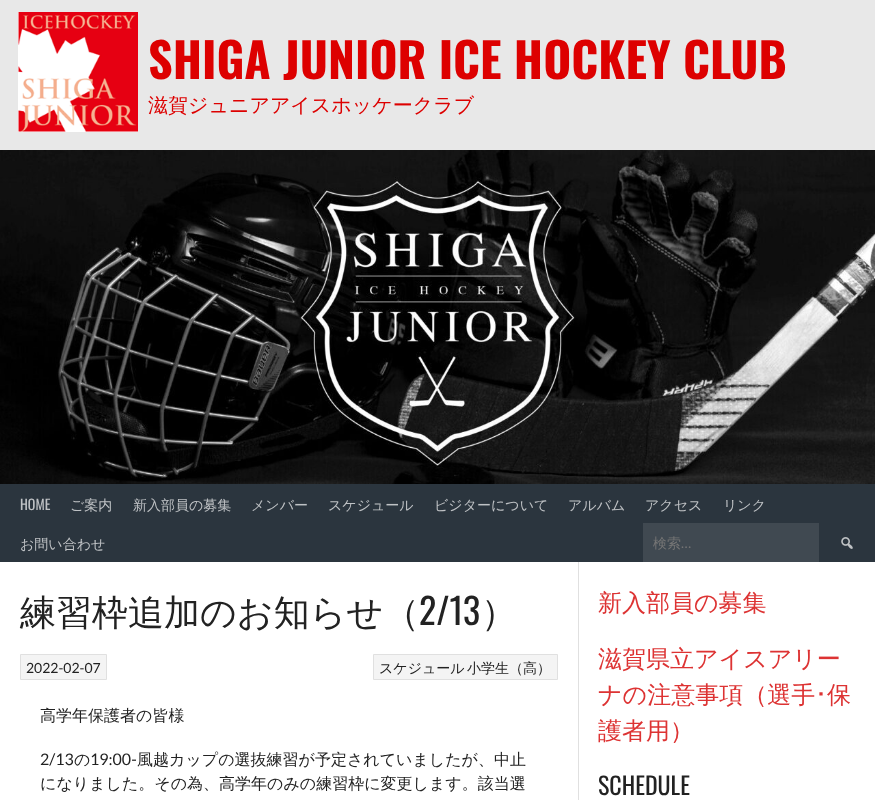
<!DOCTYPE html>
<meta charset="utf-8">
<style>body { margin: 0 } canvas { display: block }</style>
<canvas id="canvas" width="875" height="800"></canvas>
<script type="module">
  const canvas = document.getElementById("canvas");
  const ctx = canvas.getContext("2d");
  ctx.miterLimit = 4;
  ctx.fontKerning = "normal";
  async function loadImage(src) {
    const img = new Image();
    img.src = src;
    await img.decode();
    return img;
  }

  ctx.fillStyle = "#e8e8e8";
  ctx.fillRect(0, 0, 875, 800);
  ctx.drawImage(await loadImage("img1.png"), 18, 12, 120, 120);
  ctx.font = "bold 48px Oswald";
  ctx.fillStyle = "#dd0000";
  ctx.fillText("SHIGA JUNIOR ICE HOCKEY CLUB", 148, 79);
  ctx.font = "500 20px WenQuanYi Zen Hei";
  ctx.fillText("滋賀ジュニアアイスホッケークラブ", 148, 112);
  ctx.drawImage(await loadImage("img2.png"), 0, 150, 875, 334);
  ctx.fillStyle = "#2b353e";
  ctx.fillRect(0, 484, 875, 78);
  ctx.font = "14px Oswald";
  ctx.fillStyle = "#bfc2c5";
  ctx.fillText("HOME", 20, 510);
  ctx.font = "500 14px WenQuanYi Zen Hei";
  ctx.fillText("ご案内", 70, 510);
  ctx.fillText("新入部員の募集", 133, 510);
  ctx.fillText("メンバー", 251, 510);
  ctx.fillText("スケジュール", 328, 510);
  ctx.fillText("ビジターについて", 434, 510);
  ctx.fillText("アルバム", 568, 510);
  ctx.fillText("アクセス", 645, 510);
  ctx.fillText("リンク", 723, 510);
  ctx.fillText("お問い合わせ", 20, 549);
  ctx.fillStyle = "#404951";
  ctx.fillRect(643, 523, 176, 39);
  ctx.fillStyle = "#757575";
  ctx.fillText("検索", 653, 548);
  ctx.font = "14px Lato";
  ctx.fillText("…", 681, 548);
  ctx.drawImage(await loadImage("img3.png"), 841, 537, 12, 12);
  ctx.fillStyle = "#ffffff";
  ctx.fillRect(0, 562, 875, 238);
  ctx.fillStyle = "#e0e0e0";
  ctx.fillRect(578, 562, 1, 238);
  ctx.font = "500 36px WenQuanYi Zen Hei";
  ctx.fillStyle = "#222222";
  ctx.fillText("練習枠追加のお知らせ（", 20, 625);
  ctx.font = "36px Oswald";
  ctx.fillText("2/13", 419, 625);
  ctx.font = "500 36px WenQuanYi Zen Hei";
  ctx.fillText("）", 481, 625);
  ctx.fillStyle = "#f4f4f4";
  ctx.beginPath();
  ctx.rect(20.5, 654.5, 86, 25);
  ctx.fill();
  ctx.strokeStyle = "#e0e0e0";
  ctx.stroke();
  ctx.font = "14px Lato";
  ctx.fillStyle = "#222222";
  ctx.fillText("2022-02-07", 26, 673);
  ctx.fillStyle = "#f4f4f4";
  ctx.beginPath();
  ctx.rect(373.5, 654.5, 184, 25);
  ctx.fill();
  ctx.stroke();
  ctx.font = "500 14px WenQuanYi Zen Hei";
  ctx.fillStyle = "#222222";
  ctx.fillText("スケジュール", 379, 673);
  ctx.fillText("小学生（高）", 467, 673);
  ctx.font = "500 16px WenQuanYi Zen Hei";
  ctx.fillText("高学年保護者の皆様", 40, 721);
  ctx.font = "16px Lato";
  ctx.fillText("2/13", 40, 765);
  ctx.font = "500 16px WenQuanYi Zen Hei";
  ctx.fillText("の", 74, 765);
  ctx.font = "16px Lato";
  ctx.fillText("19:00-", 90, 765);
  ctx.font = "500 16px WenQuanYi Zen Hei";
  ctx.fillText("風越カップの選抜練習が予定されていましたが、中止", 137, 765);
  ctx.fillText("になりました。その為、高学年のみの練習枠に変更します。該当選", 40, 789);
  ctx.font = "500 24px WenQuanYi Zen Hei";
  ctx.fillStyle = "#dd3333";
  ctx.fillText("新入部員の募集", 598, 611);
  ctx.fillText("滋賀県立アイスアリー", 598, 667);
  ctx.fillText("ナの注意事項（選手", 598, 703);
  ctx.font = "24px IPAPGothic";
  ctx.fillText("･", 815, 703);
  ctx.font = "500 24px WenQuanYi Zen Hei";
  ctx.fillText("保", 827, 703);
  ctx.fillText("護者用）", 598, 739);
  ctx.font = "24px Oswald";
  ctx.fillStyle = "#222222";
  ctx.fillText("SCHEDULE", 598, 795);
</script>
